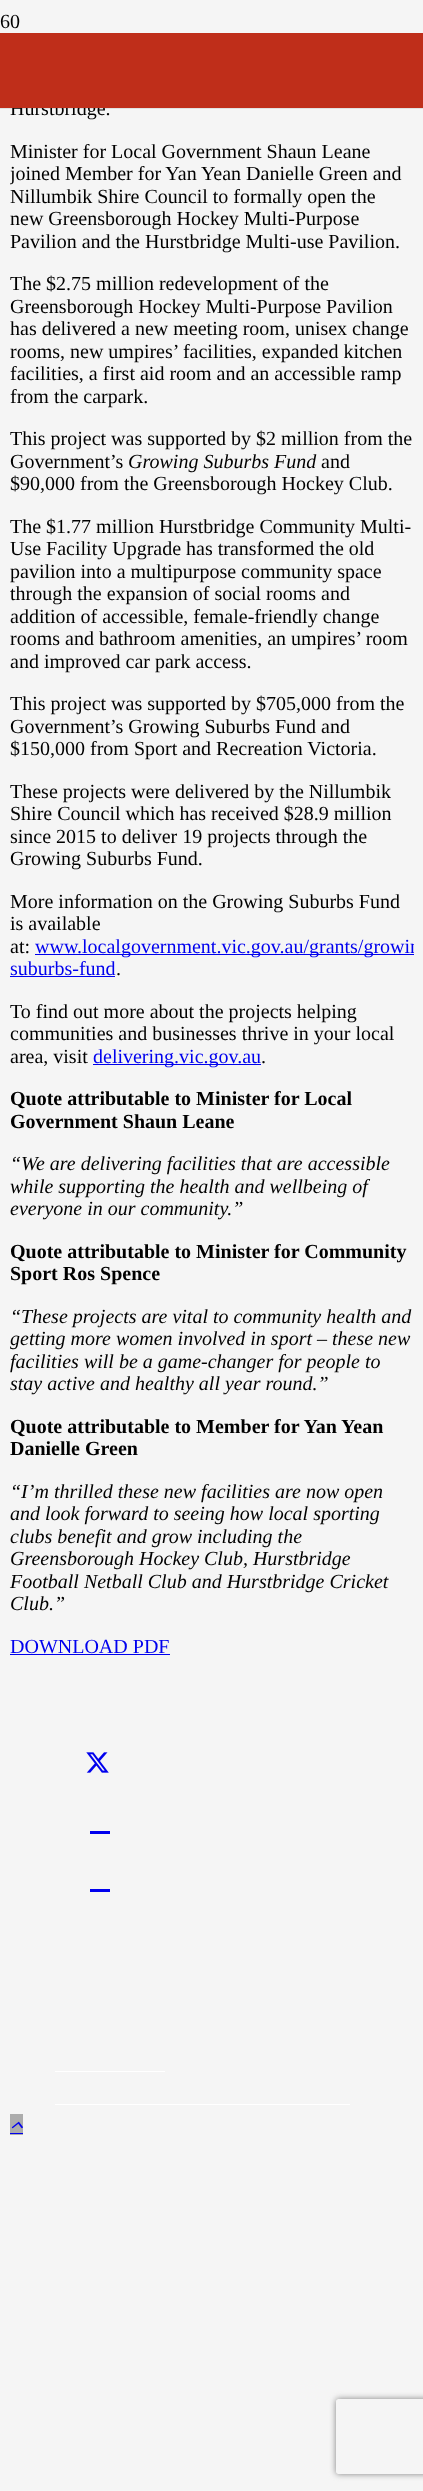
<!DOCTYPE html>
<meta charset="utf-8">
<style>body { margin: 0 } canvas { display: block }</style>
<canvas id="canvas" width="423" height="2491"></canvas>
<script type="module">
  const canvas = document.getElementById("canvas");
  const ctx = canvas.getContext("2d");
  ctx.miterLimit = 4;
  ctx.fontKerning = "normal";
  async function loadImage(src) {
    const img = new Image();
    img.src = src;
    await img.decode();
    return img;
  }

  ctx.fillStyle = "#f5f5f5";
  ctx.fillRect(0, 0, 423, 2491);
  ctx.font = "20px Liberation Serif";
  ctx.fillStyle = "#000000";
  ctx.fillText("60", 0, 28);
  ctx.fillStyle = "rgba(0, 0, 0, 0.08)";
  ctx.beginPath();
  ctx.moveTo(0, 108);
  ctx.lineTo(0, 109);
  ctx.lineTo(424, 109);
  ctx.lineTo(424, 34);
  ctx.lineTo(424, 108);
  ctx.closePath();
  ctx.fill();
  ctx.fillStyle = "#000000";
  ctx.fillText("Hurstbridge.", 10, 115);
  ctx.fillStyle = "#bf2e1a";
  ctx.fillRect(0, 33, 423, 75);
  ctx.fillStyle = "#000000";
  ctx.fillText("Minister for Local Government Shaun Leane", 10, 158);
  ctx.save();
  ctx.beginPath();
  ctx.rect(10, 10, 404, 1668);
  ctx.clip();
  ctx.fillText("joined Member for Yan Yean Danielle Green and", 10, 180);
  ctx.restore();
  ctx.fillText("Nillumbik Shire Council to formally open the", 10, 203);
  ctx.fillText("new Greensborough Hockey Multi-Purpose", 10, 225);
  ctx.fillText("Pavilion and the Hurstbridge Multi-use Pavilion.", 10, 248);
  ctx.fillText("The $2.75 million redevelopment of the", 10, 290);
  ctx.fillText("Greensborough Hockey Multi-Purpose Pavilion", 10, 313);
  ctx.fillText("has delivered a new meeting room, unisex change", 10, 335);
  ctx.fillText("rooms, new umpires’ facilities, expanded kitchen", 10, 358);
  ctx.fillText("facilities, a first aid room and an accessible ramp", 10, 380);
  ctx.fillText("from the carpark.", 10, 403);
  ctx.fillText("This project was supported by $2 million from the", 10, 445);
  ctx.fillText("Government’s", 10, 468);
  ctx.font = "italic 20px Liberation Serif";
  ctx.fillText("Growing Suburbs Fund", 128, 468);
  ctx.font = "20px Liberation Serif";
  ctx.fillText("and", 321, 468);
  ctx.fillText("$90,000 from the Greensborough Hockey Club.", 10, 490);
  ctx.fillText("The $1.77 million Hurstbridge Community Multi-", 10, 533);
  ctx.fillText("Use Facility Upgrade has transformed the old", 10, 555);
  ctx.fillText("pavilion into a multipurpose community space", 10, 578);
  ctx.fillText("through the expansion of social rooms and", 10, 600);
  ctx.fillText("addition of accessible, female-friendly change", 10, 623);
  ctx.fillText("rooms and bathroom amenities, an umpires’ room", 10, 645);
  ctx.fillText("and improved car park access.", 10, 668);
  ctx.fillText("This project was supported by $705,000 from the", 10, 710);
  ctx.fillText("Government’s Growing Suburbs Fund and", 10, 733);
  ctx.fillText("$150,000 from Sport and Recreation Victoria.", 10, 755);
  ctx.fillText("These projects were delivered by the Nillumbik", 10, 798);
  ctx.fillText("Shire Council which has received $28.9 million", 10, 820);
  ctx.fillText("since 2015 to deliver 19 projects through the", 10, 843);
  ctx.fillText("Growing Suburbs Fund.", 10, 865);
  ctx.fillText("More information on the Growing Suburbs Fund", 10, 908);
  ctx.fillText("is available", 10, 930);
  ctx.fillText("at:", 10, 953);
  ctx.fillStyle = "#0000ee";
  ctx.fillRect(35, 954, 379, 1);
  ctx.save();
  ctx.beginPath();
  ctx.rect(10, 10, 404, 1668);
  ctx.clip();
  ctx.fillText("www.localgovernment.vic.gov.au/grants/growin", 35, 953);
  ctx.restore();
  ctx.fillText("suburbs-fund", 10, 975);
  ctx.fillRect(10, 976, 105, 1);
  ctx.fillStyle = "#000000";
  ctx.fillText(".", 116, 975);
  ctx.fillText("To find out more about the projects helping", 10, 1018);
  ctx.fillText("communities and businesses thrive in your local", 10, 1040);
  ctx.fillText("area, visit", 10, 1063);
  ctx.fillStyle = "#0000ee";
  ctx.fillRect(93, 1064, 168, 1);
  ctx.fillText("delivering.vic.gov.au", 93, 1063);
  ctx.fillStyle = "#000000";
  ctx.fillText(".", 261, 1063);
  ctx.font = "bold 20px Liberation Serif";
  ctx.fillText("Quote attributable to Minister for Local", 10, 1105);
  ctx.fillText("Government Shaun Leane", 10, 1128);
  ctx.font = "italic 20px Liberation Serif";
  ctx.fillText("“We are delivering facilities that are accessible", 10, 1170);
  ctx.fillText("while supporting the health and wellbeing of", 10, 1193);
  ctx.fillText("everyone in our community.”", 10, 1215);
  ctx.font = "bold 20px Liberation Serif";
  ctx.fillText("Quote attributable to Minister for Community", 10, 1258);
  ctx.fillText("Sport Ros Spence", 10, 1280);
  ctx.font = "italic 20px Liberation Serif";
  ctx.fillText("“These projects are vital to community health and", 10, 1323);
  ctx.fillText("getting more women involved in sport – these new", 10, 1345);
  ctx.fillText("facilities will be a game-changer for people to", 10, 1368);
  ctx.fillText("stay active and healthy all year round.”", 10, 1390);
  ctx.font = "bold 20px Liberation Serif";
  ctx.fillText("Quote attributable to Member for Yan Yean", 10, 1433);
  ctx.fillText("Danielle Green", 10, 1455);
  ctx.font = "italic 20px Liberation Serif";
  ctx.fillText("“I’m thrilled these new facilities are now open", 10, 1498);
  ctx.fillText("and look forward to seeing how local sporting", 10, 1520);
  ctx.fillText("clubs benefit and grow including the", 10, 1543);
  ctx.fillText("Greensborough Hockey Club, Hurstbridge", 10, 1565);
  ctx.fillText("Football Netball Club and Hurstbridge Cricket", 10, 1588);
  ctx.fillText("Club.”", 10, 1610);
  ctx.font = "20px Liberation Serif";
  ctx.fillStyle = "#0000ee";
  ctx.fillText("DOWNLOAD PDF", 10, 1653);
  ctx.fillRect(10, 1654, 160, 1);
  ctx.drawImage(await loadImage("img1.png"), 86, 1752, 23, 21);
  ctx.fillRect(90, 1831, 20, 3);
  ctx.fillRect(90, 1889, 20, 3);
  ctx.fillStyle = "#ffffff";
  ctx.fillRect(55, 2071, 110, 1);
  ctx.fillRect(55, 2104, 295, 1);
  ctx.fillStyle = "#acacac";
  ctx.fillRect(10, 2114, 13, 21);
  ctx.drawImage(await loadImage("img2.png"), 11, 2121, 12, 8);
  ctx.fillStyle = "#0000ee";
  ctx.fillRect(10, 2133, 13, 1);
  ctx.save();
  ctx.beginPath();
  ctx.moveTo(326, 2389);
  ctx.lineTo(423, 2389);
  ctx.lineTo(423, 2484);
  ctx.lineTo(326, 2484);
  ctx.closePath();
  ctx.moveTo(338.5, 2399);
  ctx.lineTo(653.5, 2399);
  ctx.bezierCurveTo(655, 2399, 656, 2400, 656, 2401.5);
  ctx.lineTo(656, 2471.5);
  ctx.bezierCurveTo(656, 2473, 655, 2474, 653.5, 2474);
  ctx.lineTo(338.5, 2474);
  ctx.bezierCurveTo(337, 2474, 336, 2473, 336, 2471.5);
  ctx.lineTo(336, 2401.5);
  ctx.bezierCurveTo(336, 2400, 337, 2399, 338.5, 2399);
  ctx.closePath();
  ctx.clip("evenodd");
  ctx.fillStyle = "#808080";
  ctx.filter = "blur(3px)";
  ctx.beginPath();
  ctx.roundRect(336, 2399, 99, 75, 2.5);
  ctx.fill();
  ctx.filter = "none";
  ctx.restore();
</script>
